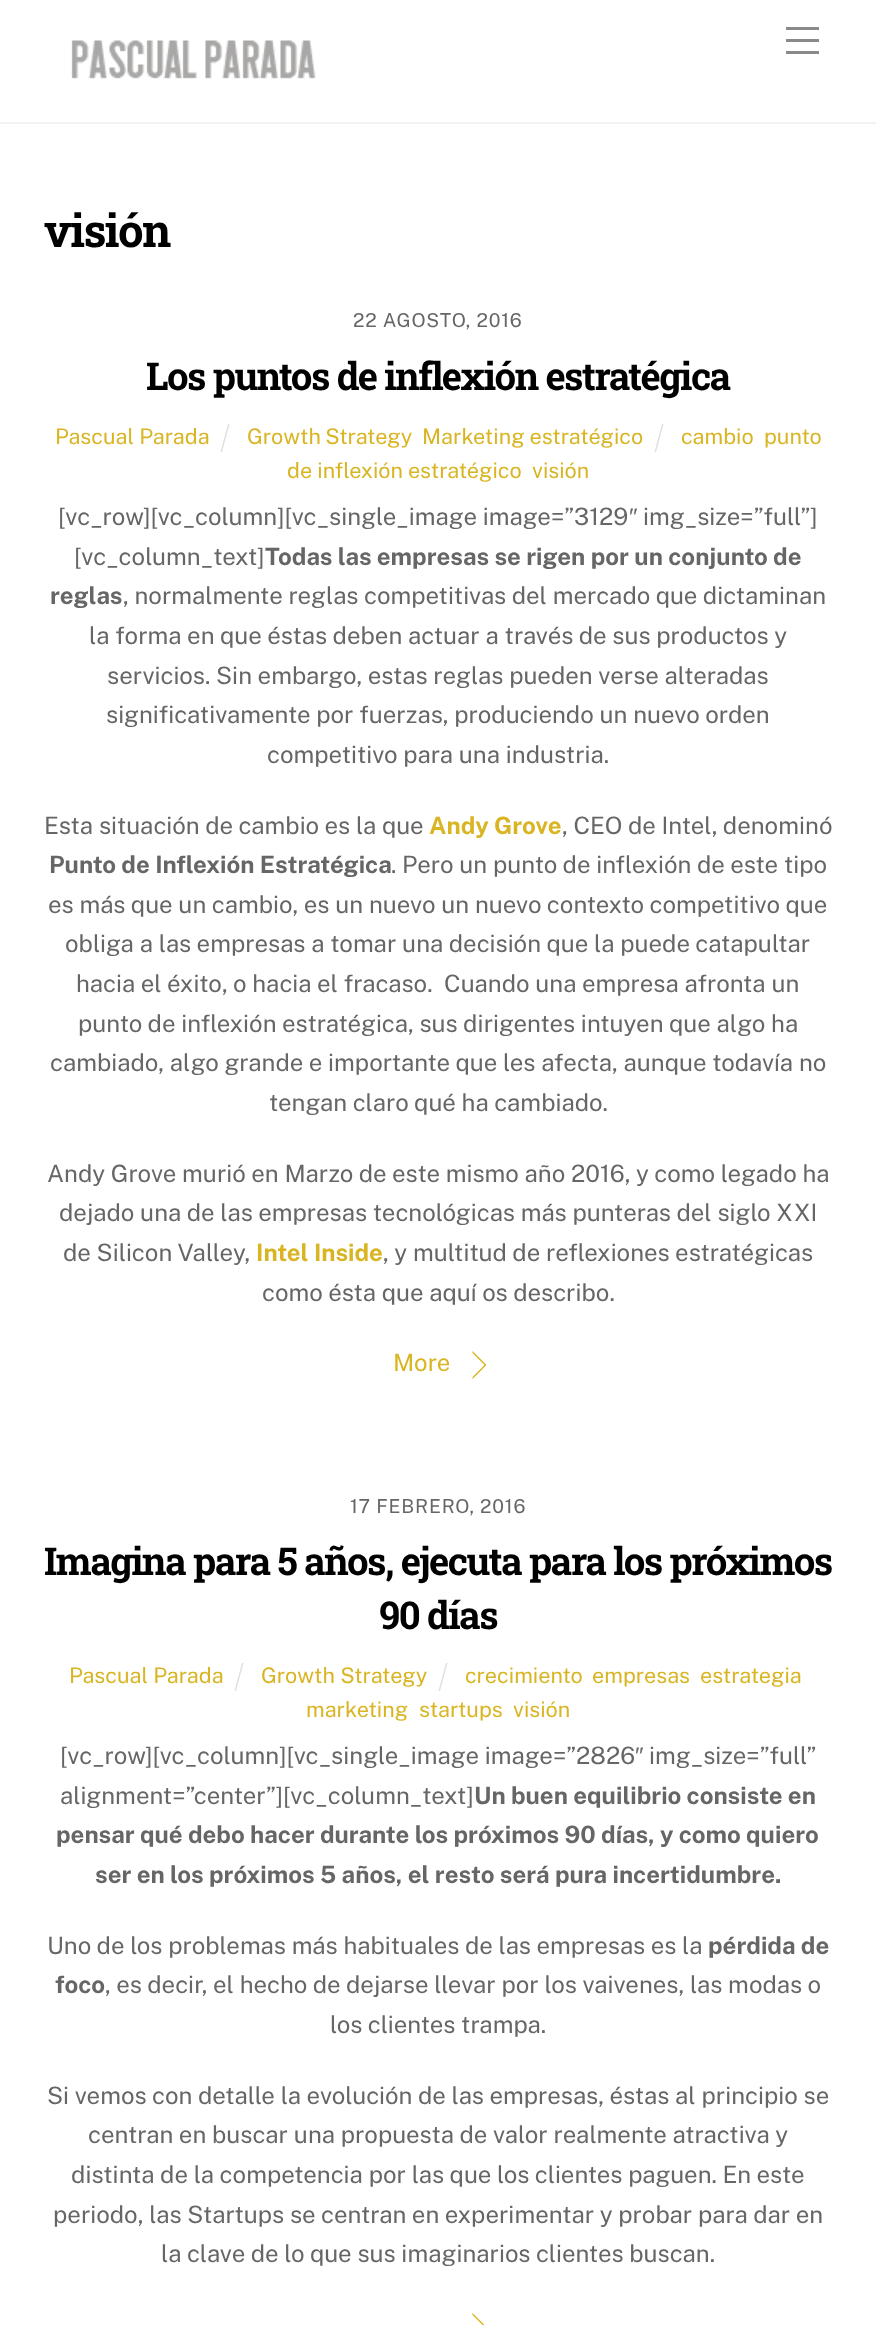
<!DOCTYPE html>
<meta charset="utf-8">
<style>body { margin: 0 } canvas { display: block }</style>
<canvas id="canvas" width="876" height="2325"></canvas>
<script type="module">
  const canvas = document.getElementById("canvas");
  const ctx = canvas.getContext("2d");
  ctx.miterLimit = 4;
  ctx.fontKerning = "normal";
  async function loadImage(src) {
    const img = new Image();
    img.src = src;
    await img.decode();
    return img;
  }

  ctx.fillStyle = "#ffffff";
  ctx.fillRect(0, 0, 876, 2325);
  ctx.fillStyle = "#f2f2f2";
  ctx.fillRect(0, 122, 876, 2);
  ctx.drawImage(await loadImage("img1.png"), 71, 40, 245, 39);
  ctx.fillStyle = "#8a8a8a";
  ctx.fillRect(786, 51, 33, 3);
  ctx.fillRect(786, 27, 33, 3);
  ctx.fillRect(786, 39, 33, 3);
  ctx.letterSpacing = "-1.5px";
  ctx.font = "bold 45.5px Roboto Slab";
  ctx.fillStyle = "#000000";
  ctx.fillText("visión", 44, 247);
  ctx.letterSpacing = "0.75px";
  ctx.font = "19.25px Public Sans";
  ctx.fillStyle = "#666666";
  ctx.fillText("22 AGOSTO, 2016", 353, 327);
  ctx.letterSpacing = "-1.55px";
  ctx.font = "bold 38.4px Roboto Slab";
  ctx.fillStyle = "#000000";
  ctx.fillText("Los puntos de inflexión estratégica", 146, 390);
  ctx.letterSpacing = "0px";
  ctx.font = "21.6px Public Sans";
  ctx.fillStyle = "#d9b523";
  ctx.fillText("Pascual Parada", 55, 444);
  ctx.fillStyle = "#e0e0e0";
  ctx.beginPath();
  ctx.moveTo(228, 424);
  ctx.lineTo(229.5, 424);
  ctx.lineTo(222, 452);
  ctx.lineTo(220.5, 452);
  ctx.closePath();
  ctx.fill();
  ctx.wordSpacing = "-1px";
  ctx.fillStyle = "#d9b523";
  ctx.fillText("Growth Strategy", 247, 444);
  ctx.wordSpacing = "0px";
  ctx.fillText("Marketing estratégico", 422, 444);
  ctx.fillStyle = "#e0e0e0";
  ctx.beginPath();
  ctx.moveTo(662, 424);
  ctx.lineTo(663.5, 424);
  ctx.lineTo(656, 452);
  ctx.lineTo(654.5, 452);
  ctx.closePath();
  ctx.fill();
  ctx.fillStyle = "#d9b523";
  ctx.fillText("cambio", 681, 444);
  ctx.fillText("punto", 764, 444);
  ctx.fillText("de inflexión estratégico", 287, 478);
  ctx.fillText("visión", 532, 478);
  ctx.font = "24px Public Sans";
  ctx.fillStyle = "#666666";
  ctx.fillText("[vc_row][vc_column][vc_single_image image=”3129", 58, 525);
  ctx.font = "24px Liberation Sans";
  ctx.fillText("″", 629, 525);
  ctx.font = "24px Public Sans";
  ctx.fillText("img_size=”full”]", 643, 525);
  ctx.fillText("[vc_column_text]", 74, 565);
  ctx.font = "bold 24px Public Sans";
  ctx.fillText("Todas las empresas se rigen por un conjunto de", 265, 565);
  ctx.fillText("reglas", 50, 604);
  ctx.font = "24px Public Sans";
  ctx.fillText(", normalmente reglas competitivas del mercado que dictaminan", 123, 604);
  ctx.fillText("la forma en que éstas deben actuar a través de sus productos y", 89, 644);
  ctx.fillText("servicios. Sin embargo, estas reglas pueden verse alteradas", 107, 684);
  ctx.fillText("significativamente por fuerzas, produciendo un nuevo orden", 106, 723);
  ctx.fillText("competitivo para una industria.", 267, 763);
  ctx.fillText("Esta situación de cambio es la que", 44, 834);
  ctx.font = "bold 24px Public Sans";
  ctx.fillStyle = "#d9b523";
  ctx.fillText("Andy Grove", 429, 834);
  ctx.font = "24px Public Sans";
  ctx.fillStyle = "#666666";
  ctx.fillText(", CEO de Intel, denominó", 562, 834);
  ctx.font = "bold 24px Public Sans";
  ctx.fillText("Punto de Inflexión Estratégica", 49, 873);
  ctx.font = "24px Public Sans";
  ctx.fillText(". Pero un punto de inflexión de este tipo", 391, 873);
  ctx.fillText("es más que un cambio, es un nuevo un nuevo contexto competitivo que", 48, 913);
  ctx.fillText("obliga a las empresas a tomar una decisión que la puede catapultar", 65, 952);
  ctx.fillText("hacia el éxito, o hacia el fracaso.  Cuando una empresa afronta un", 76, 992);
  ctx.fillText("punto de inflexión estratégica, sus dirigentes intuyen que algo ha", 78, 1032);
  ctx.fillText("cambiado, algo grande e importante que les afecta, aunque todavía no", 50, 1071);
  ctx.fillText("tengan claro qué ha cambiado.", 269, 1111);
  ctx.fillText("Andy Grove murió en Marzo de este mismo año 2016, y como legado ha", 47, 1182);
  ctx.fillText("dejado una de las empresas tecnológicas más punteras del siglo XXI", 59, 1221);
  ctx.fillText("de Silicon Valley,", 63, 1261);
  ctx.font = "bold 24px Public Sans";
  ctx.fillStyle = "#d9b523";
  ctx.fillText("Intel Inside", 256, 1261);
  ctx.font = "24px Public Sans";
  ctx.fillStyle = "#666666";
  ctx.fillText(", y multitud de reflexiones estratégicas", 383, 1261);
  ctx.fillText("como ésta que aquí os describo.", 262, 1301);
  ctx.fillStyle = "#d9b523";
  ctx.fillText("More", 393, 1371);
  ctx.beginPath();
  ctx.moveTo(472.5, 1351);
  ctx.lineTo(486.5, 1365);
  ctx.lineTo(484.5, 1365);
  ctx.lineTo(472.5, 1353);
  ctx.closePath();
  ctx.moveTo(486.5, 1365);
  ctx.lineTo(472.5, 1379);
  ctx.lineTo(472.5, 1377);
  ctx.lineTo(484.5, 1365);
  ctx.closePath();
  ctx.fill();
  ctx.letterSpacing = "0.75px";
  ctx.font = "19.25px Public Sans";
  ctx.fillStyle = "#666666";
  ctx.fillText("17 FEBRERO, 2016", 350, 1513);
  ctx.letterSpacing = "-1.55px";
  ctx.font = "bold 38.4px Roboto Slab";
  ctx.fillStyle = "#000000";
  ctx.fillText("Imagina para 5 años, ejecuta para los próximos", 44, 1575);
  ctx.fillText("90 días", 379, 1629);
  ctx.letterSpacing = "0px";
  ctx.font = "21.6px Public Sans";
  ctx.fillStyle = "#d9b523";
  ctx.fillText("Pascual Parada", 69, 1683);
  ctx.fillStyle = "#e0e0e0";
  ctx.beginPath();
  ctx.moveTo(242, 1663);
  ctx.lineTo(243.5, 1663);
  ctx.lineTo(236, 1691);
  ctx.lineTo(234.5, 1691);
  ctx.closePath();
  ctx.fill();
  ctx.fillStyle = "#d9b523";
  ctx.fillText("Growth Strategy", 261, 1683);
  ctx.fillStyle = "#e0e0e0";
  ctx.beginPath();
  ctx.moveTo(446, 1663);
  ctx.lineTo(447.5, 1663);
  ctx.lineTo(440, 1691);
  ctx.lineTo(438.5, 1691);
  ctx.closePath();
  ctx.fill();
  ctx.fillStyle = "#d9b523";
  ctx.fillText("crecimiento", 465, 1683);
  ctx.fillText("empresas", 592, 1683);
  ctx.fillText("estrategia", 700, 1683);
  ctx.fillText("marketing", 306, 1717);
  ctx.fillText("startups", 419, 1717);
  ctx.fillText("visión", 513, 1717);
  ctx.font = "24px Public Sans";
  ctx.fillStyle = "#666666";
  ctx.fillText("[vc_row][vc_column][vc_single_image image=”2826", 60, 1764);
  ctx.font = "24px Liberation Sans";
  ctx.fillText("″", 635, 1764);
  ctx.font = "24px Public Sans";
  ctx.fillText("img_size=”full”", 649, 1764);
  ctx.fillText("alignment=”center”][vc_column_text]", 60, 1804);
  ctx.font = "bold 24px Public Sans";
  ctx.fillText("Un buen equilibrio consiste en", 474, 1804);
  ctx.fillText("pensar qué debo hacer durante los próximos 90 días, y como quiero", 56, 1843);
  ctx.fillText("ser en los próximos 5 años, el resto será pura incertidumbre.", 95, 1883);
  ctx.font = "24px Public Sans";
  ctx.fillText("Uno de los problemas más habituales de las empresas es la", 47, 1954);
  ctx.font = "bold 24px Public Sans";
  ctx.fillText("pérdida de", 708, 1954);
  ctx.fillText("foco", 55, 1993);
  ctx.font = "24px Public Sans";
  ctx.fillText(", es decir, el hecho de dejarse llevar por los vaivenes, las modas o", 105, 1993);
  ctx.fillText("los clientes trampa.", 330, 2033);
  ctx.fillText("Si vemos con detalle la evolución de las empresas, éstas al principio se", 47, 2104);
  ctx.fillText("centran en buscar una propuesta de valor realmente atractiva y", 88, 2143);
  ctx.fillText("distinta de la competencia por las que los clientes paguen. En este", 71, 2183);
  ctx.fillText("periodo, las Startups se centran en experimentar y probar para dar en", 53, 2223);
  ctx.fillText("la clave de lo que sus imaginarios clientes buscan.", 161, 2262);
  ctx.fillStyle = "#d9b523";
  ctx.beginPath();
  ctx.moveTo(472.5, 2313);
  ctx.lineTo(486.5, 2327);
  ctx.lineTo(484.5, 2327);
  ctx.lineTo(472.5, 2315);
  ctx.closePath();
  ctx.fill();
</script>
